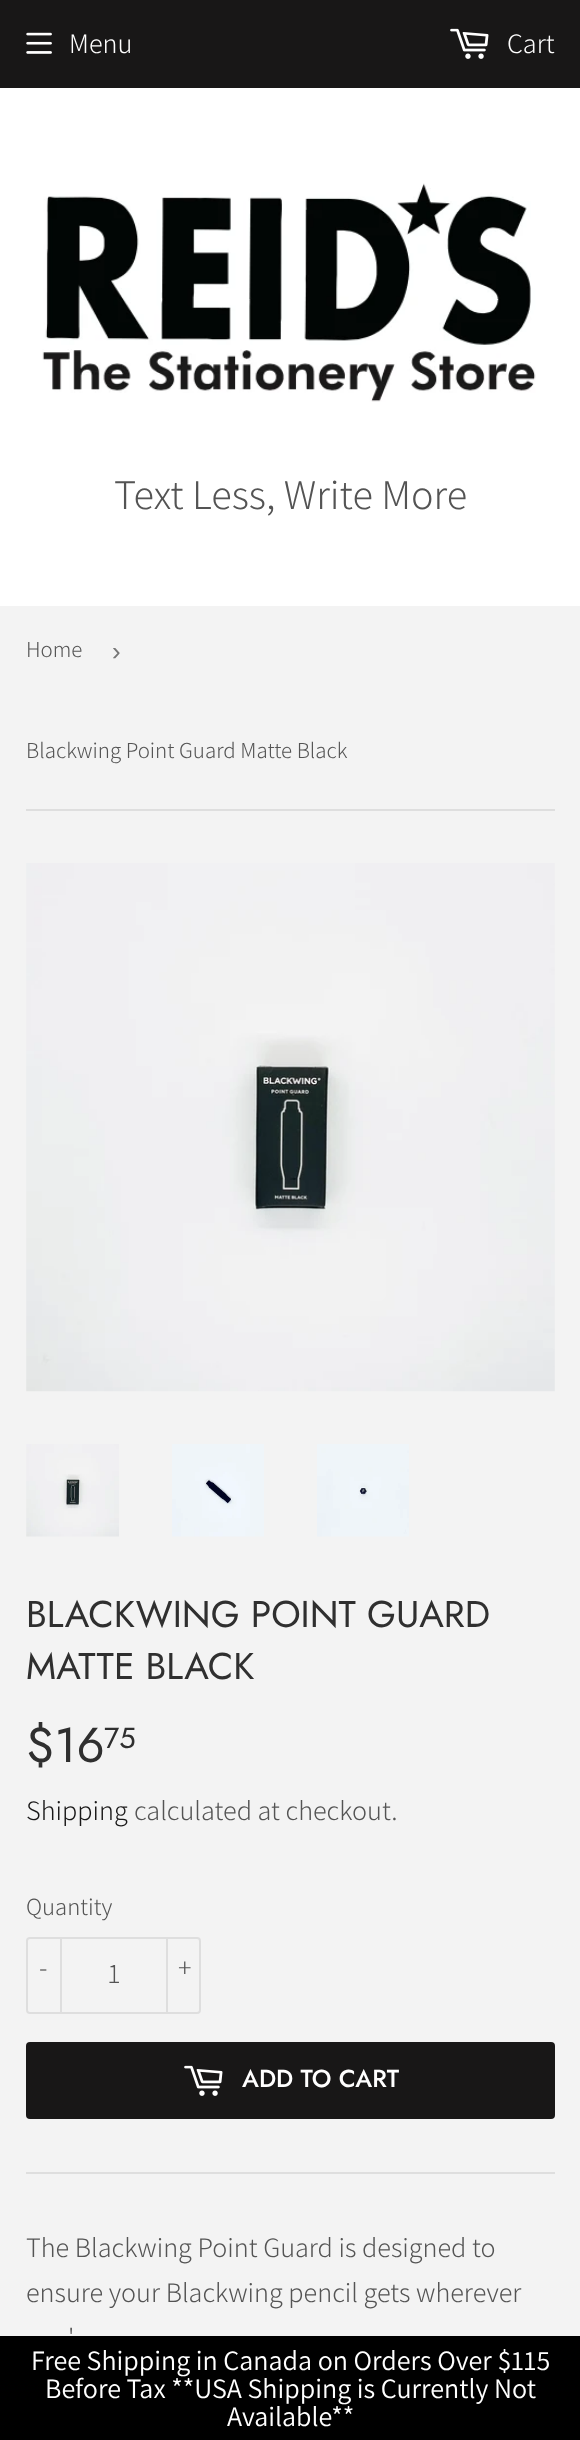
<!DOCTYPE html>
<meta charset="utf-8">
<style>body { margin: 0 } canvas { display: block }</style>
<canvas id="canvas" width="580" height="2440"></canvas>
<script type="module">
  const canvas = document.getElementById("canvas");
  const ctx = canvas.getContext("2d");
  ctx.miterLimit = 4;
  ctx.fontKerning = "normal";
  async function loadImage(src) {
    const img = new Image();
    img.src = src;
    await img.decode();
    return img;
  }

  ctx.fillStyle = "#f3f3f3";
  ctx.fillRect(0, 0, 580, 2440);
  ctx.fillStyle = "#181717";
  ctx.fillRect(0, 0, 580, 88);
  ctx.drawImage(await loadImage("img1.png"), 26, 32, 26, 22);
  ctx.font = "300 28px Assistant";
  ctx.fillStyle = "#ffffff";
  ctx.fillText("Menu", 69, 53);
  ctx.drawImage(await loadImage("img2.png"), 450, 28, 39, 31);
  ctx.fillText("Cart", 507, 53);
  ctx.fillRect(0, 88, 580, 518);
  ctx.drawImage(await loadImage("img3.png"), 42, 183, 494, 219);
  ctx.font = "300 42px Assistant";
  ctx.fillStyle = "#545454";
  ctx.fillText("Text Less, Write More", 114, 509);
  ctx.fillStyle = "#dedede";
  ctx.fillRect(26, 809, 529, 2);
  ctx.font = "300 22.75px Assistant";
  ctx.fillStyle = "#545454";
  ctx.fillText("Home", 26, 657);
  ctx.font = "26px Liberation Sans";
  ctx.fillStyle = "#767676";
  ctx.fillText("›", 112, 660);
  ctx.font = "300 22.75px Assistant";
  ctx.fillStyle = "#545454";
  ctx.fillText("Blackwing Point Guard Matte Black", 26, 758);
  ctx.drawImage(await loadImage("img4.png"), 26, 863, 529, 529);
  ctx.drawImage(await loadImage("img5.png"), 26, 1444, 93, 93);
  ctx.drawImage(await loadImage("img6.png"), 172, 1444, 92, 93);
  ctx.drawImage(await loadImage("img7.png"), 317, 1444, 92, 93);
  ctx.font = "37.25px Jost";
  ctx.fillStyle = "#2f2f2f";
  ctx.fillText("BLACKWING POINT GUARD", 26, 1627);
  ctx.fillText("MATTE BLACK", 26, 1679);
  ctx.font = "49px Jost";
  ctx.fillText("$16", 26, 1762);
  ctx.font = "29px Jost";
  ctx.fillText("75", 104, 1748);
  ctx.font = "300 28px Assistant";
  ctx.fillStyle = "#181717";
  ctx.fillText("Shipping", 26, 1820);
  ctx.fillStyle = "#545454";
  ctx.fillText("calculated at checkout.", 134, 1820);
  ctx.font = "300 24.5px Assistant";
  ctx.fillText("Quantity", 26, 1915);
  ctx.beginPath();
  ctx.roundRect(27, 1938, 173, 75, 3);
  ctx.strokeStyle = "#dedede";
  ctx.lineWidth = 2;
  ctx.stroke();
  ctx.fillStyle = "#dedede";
  ctx.fillRect(60, 1937, 2, 77);
  ctx.font = "300 28px Assistant";
  ctx.fillStyle = "#545454";
  ctx.fillText("-", 39, 1977);
  ctx.fillText("1", 108, 1983);
  ctx.fillStyle = "#dedede";
  ctx.fillRect(166, 1937, 2, 77);
  ctx.fillStyle = "#545454";
  ctx.fillText("+", 178, 1977);
  ctx.fillStyle = "#181717";
  ctx.beginPath();
  ctx.roundRect(26, 2042, 529, 77, 4);
  ctx.fill();
  ctx.drawImage(await loadImage("img2.png"), 184, 2065, 39, 31);
  ctx.font = "500 24.5px Jost";
  ctx.fillStyle = "#ffffff";
  ctx.fillText("ADD TO CART", 242, 2087);
  ctx.fillStyle = "#dedede";
  ctx.fillRect(26, 2172, 529, 2);
  ctx.font = "300 28px Assistant";
  ctx.fillStyle = "#545454";
  ctx.fillText("The Blackwing Point Guard is designed to", 26, 2257);
  ctx.fillText("ensure your Blackwing pencil gets wherever", 26, 2302);
  ctx.fillText("'", 68, 2347);
  ctx.fillStyle = "#000000";
  ctx.fillRect(0, 2336, 580, 104);
  ctx.font = "28px Assistant";
  ctx.fillStyle = "#ffffff";
  ctx.fillText("Free Shipping in Canada on Orders Over $115", 31, 2370);
  ctx.fillText("Before Tax **USA Shipping is Currently Not", 45, 2398);
  ctx.fillText("Available**", 227, 2426);
</script>
